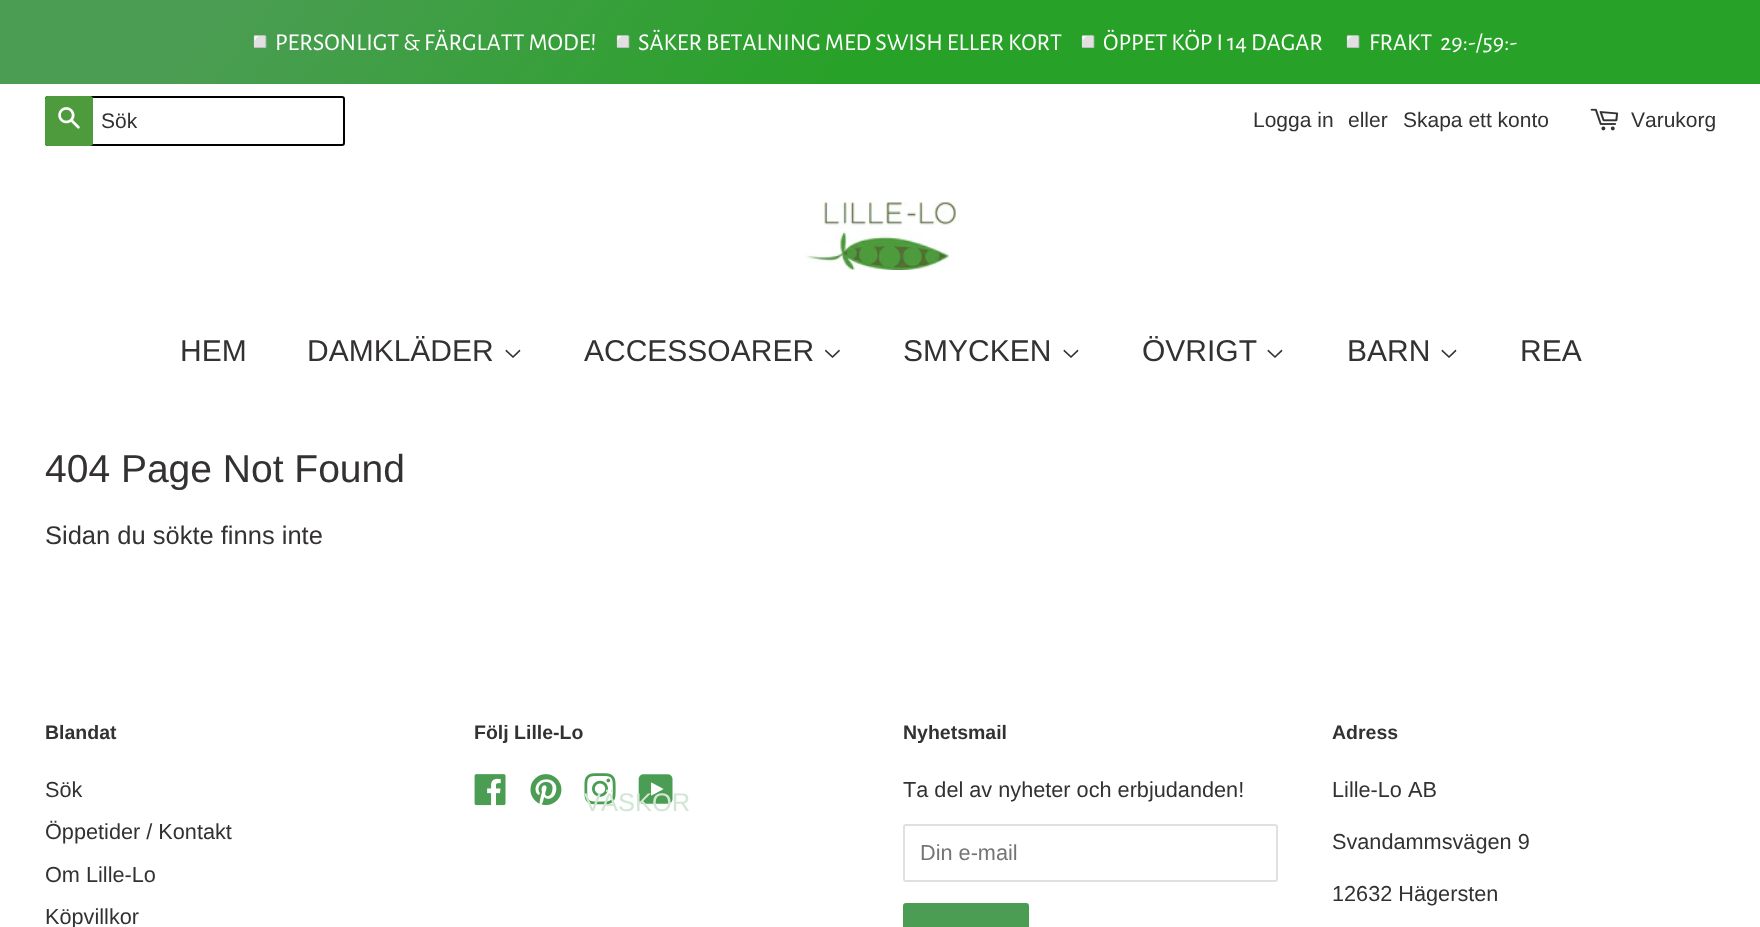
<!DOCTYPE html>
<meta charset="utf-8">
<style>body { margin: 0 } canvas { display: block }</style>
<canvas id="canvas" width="1760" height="927"></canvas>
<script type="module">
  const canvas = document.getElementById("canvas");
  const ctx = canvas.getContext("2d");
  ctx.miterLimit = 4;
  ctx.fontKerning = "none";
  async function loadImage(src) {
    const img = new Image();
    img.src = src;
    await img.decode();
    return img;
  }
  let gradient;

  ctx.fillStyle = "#ffffff";
  ctx.fillRect(0, 0, 1760, 927);
  gradient = ctx.createLinearGradient(299, -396, 1462, 480);
  gradient.addColorStop(0.11, "#4c9d54");
  gradient.addColorStop(0.5, "#27a127");
  ctx.fillStyle = gradient;
  ctx.fillRect(0, 0, 1760, 84);
  ctx.font = "24.25px Noto Color Emoji";
  ctx.fillStyle = "#ffffff";
  ctx.fillText("◽", 245, 50);
  ctx.font = "24.25px Alegreya Sans";
  ctx.fillText("PERSONLIGT & FÄRGLATT MODE!", 275, 50);
  ctx.font = "24.25px Noto Color Emoji";
  ctx.fillText("◽", 608, 50);
  ctx.font = "24.25px Alegreya Sans";
  ctx.fillText("SÄKER BETALNING MED SWISH ELLER KORT", 638, 50);
  ctx.font = "24.25px Noto Color Emoji";
  ctx.fillText("◽", 1073, 50);
  ctx.font = "24.25px Alegreya Sans";
  ctx.fillText("ÖPPET KÖP I 14 DAGAR", 1103, 50);
  ctx.font = "24.25px Noto Color Emoji";
  ctx.fillText("◽", 1338, 50);
  ctx.font = "24.25px Alegreya Sans";
  ctx.fillText("FRAKT  29:-/59:-", 1369, 50);
  ctx.beginPath();
  ctx.roundRect(46, 97, 298, 48, 2);
  ctx.strokeStyle = "#000000";
  ctx.lineWidth = 2;
  ctx.stroke();
  ctx.fillStyle = "#4e9b3d";
  ctx.beginPath();
  ctx.roundRect(45, 96, 48, 50, 3);
  ctx.fill();
  ctx.drawImage(await loadImage("img1.png"), 58, 107, 22, 22);
  ctx.font = "21px Arimo";
  ctx.fillStyle = "#333131";
  ctx.fillText("Sök", 101, 128);
  ctx.fillText("Logga in", 1253, 127);
  ctx.fillText("eller", 1348, 127);
  ctx.fillText("Skapa ett konto", 1403, 127);
  ctx.drawImage(await loadImage("img2.png"), 1590, 108, 29, 23);
  ctx.fillText("Varukorg", 1631, 127);
  ctx.drawImage(await loadImage("img3.png"), 805, 202, 151, 68);
  ctx.font = "30px Arimo";
  ctx.fillText("HEM", 180, 361);
  ctx.fillText("DAMKLÄDER", 307, 361);
  ctx.drawImage(await loadImage("img4.png"), 505, 349, 16, 9);
  ctx.fillText("ACCESSOARER", 584, 361);
  ctx.drawImage(await loadImage("img5.png"), 825, 349, 15, 9);
  ctx.drawImage(await loadImage("img8.png"), 584, 773, 32, 32);
  ctx.drawImage(await loadImage("img9.png"), 638, 774, 35, 30);
  ctx.font = "25.5px Arimo";
  ctx.fillStyle = "#d2e6d4";
  ctx.fillText("VÄSKOR", 584, 811);
  ctx.font = "30px Arimo";
  ctx.fillStyle = "#333131";
  ctx.fillText("SMYCKEN", 903, 361);
  ctx.drawImage(await loadImage("img4.png"), 1063, 349, 16, 9);
  ctx.fillText("ÖVRIGT", 1142, 361);
  ctx.drawImage(await loadImage("img4.png"), 1267, 349, 16, 9);
  ctx.fillText("BARN", 1347, 361);
  ctx.drawImage(await loadImage("img4.png"), 1441, 349, 16, 9);
  ctx.fillText("REA", 1520, 361);
  ctx.font = "39px Arimo";
  ctx.fillText("404 Page Not Found", 45, 482);
  ctx.font = "25.5px Arimo";
  ctx.fillText("Sidan du sökte finns inte", 45, 544);
  ctx.font = "bold 19.5px Arimo";
  ctx.fillText("Blandat", 45, 739);
  ctx.font = "21.7px Arimo";
  ctx.fillText("Sök", 45, 797);
  ctx.fillText("Öppetider / Kontakt", 45, 839);
  ctx.fillText("Om Lille-Lo", 45, 882);
  ctx.fillText("Köpvillkor", 45, 924);
  ctx.font = "bold 19.5px Arimo";
  ctx.fillText("Följ Lille-Lo", 474, 739);
  ctx.drawImage(await loadImage("img6.png"), 474, 774, 32, 32);
  ctx.drawImage(await loadImage("img7.png"), 530, 774, 32, 32);
  ctx.fillText("Nyhetsmail", 903, 739);
  ctx.font = "21.7px Arimo";
  ctx.fillText("Ta del av nyheter och erbjudanden!", 903, 797);
  ctx.beginPath();
  ctx.roundRect(904, 825, 373, 56, 2);
  ctx.strokeStyle = "#e0e0e0";
  ctx.stroke();
  ctx.fillStyle = "#757575";
  ctx.fillText("Din e-mail", 920, 860);
  ctx.fillStyle = "#4c9d54";
  ctx.beginPath();
  ctx.roundRect(903, 903, 126, 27, 3);
  ctx.fill();
  ctx.font = "bold 19.5px Arimo";
  ctx.fillStyle = "#333131";
  ctx.fillText("Adress", 1332, 739);
  ctx.font = "21.7px Arimo";
  ctx.fillText("Lille-Lo AB", 1332, 797);
  ctx.fillText("Svandammsvägen 9", 1332, 849);
  ctx.fillText("12632 Hägersten", 1332, 901);
</script>
